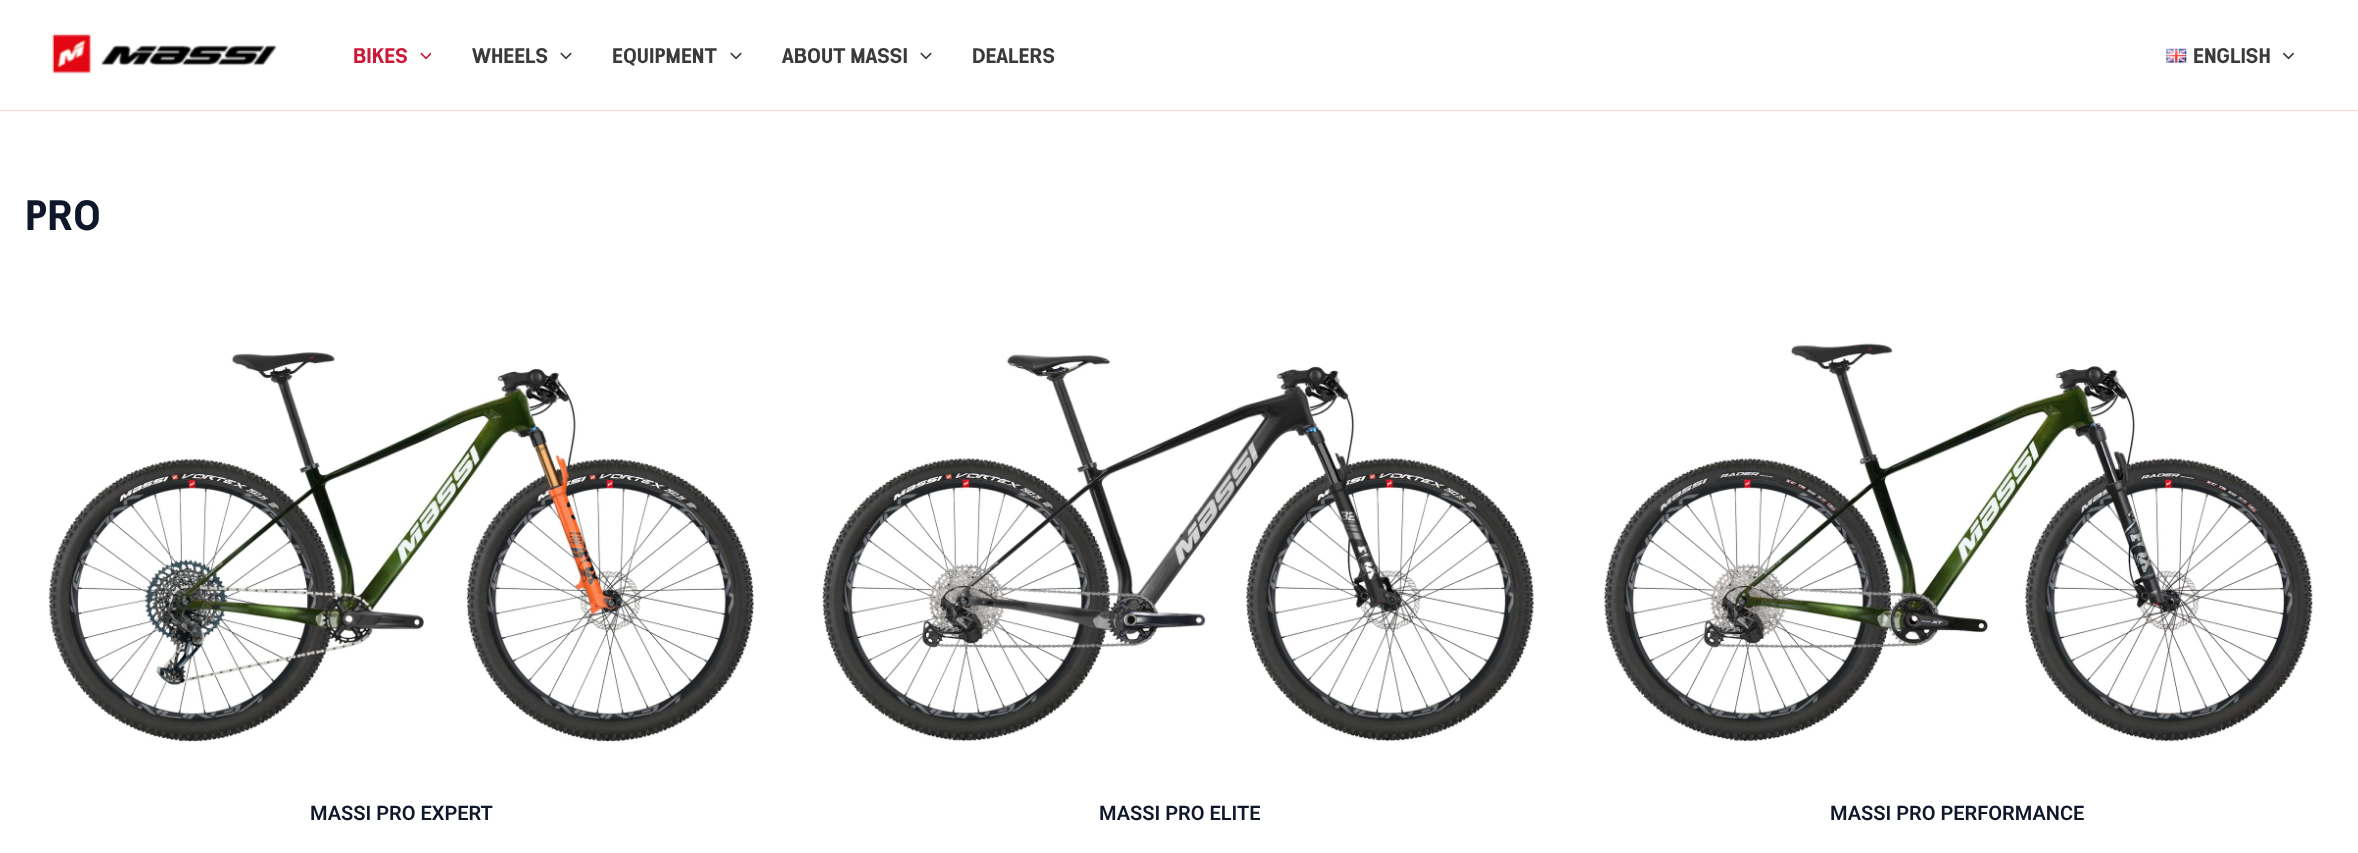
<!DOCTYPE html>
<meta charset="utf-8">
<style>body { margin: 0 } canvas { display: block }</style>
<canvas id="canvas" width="2358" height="853"></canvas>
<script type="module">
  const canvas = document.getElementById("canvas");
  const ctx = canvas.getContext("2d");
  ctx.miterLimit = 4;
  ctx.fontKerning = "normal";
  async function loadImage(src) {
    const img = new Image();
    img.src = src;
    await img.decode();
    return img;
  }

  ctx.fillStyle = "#ffffff";
  ctx.fillRect(0, 0, 2358, 853);
  ctx.fillStyle = "#ffd1bf";
  ctx.fillRect(0, 110, 2358, 1);
  ctx.drawImage(await loadImage("img1.png"), 52, 33, 225, 41);
  ctx.font = "900 20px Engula";
  ctx.fillStyle = "#cc1939";
  ctx.fillText("BIKES", 353, 63);
  ctx.drawImage(await loadImage("img2.png"), 420, 52, 11, 8);
  ctx.fillStyle = "#3a3a3a";
  ctx.fillText("WHEELS", 472, 63);
  ctx.drawImage(await loadImage("img3.png"), 560, 52, 12, 8);
  ctx.fillText("EQUIPMENT", 612, 63);
  ctx.drawImage(await loadImage("img3.png"), 730, 52, 12, 8);
  ctx.fillText("ABOUT MASSI", 782, 63);
  ctx.drawImage(await loadImage("img3.png"), 920, 52, 12, 8);
  ctx.fillText("DEALERS", 972, 63);
  ctx.drawImage(await loadImage("img4.png"), 2166, 48, 21, 15);
  ctx.fillText("ENGLISH", 2193, 63);
  ctx.drawImage(await loadImage("img5.png"), 2283, 52, 12, 8);
  ctx.font = "900 40px Engula";
  ctx.fillStyle = "#0f172a";
  ctx.fillText("PRO", 25, 230);
  ctx.drawImage(await loadImage("img6.png"), 48, 352, 706, 391);
  ctx.font = "600 20px Roboto";
  ctx.fillText("MASSI PRO EXPERT", 310, 820);
  ctx.drawImage(await loadImage("img7.png"), 822, 354, 712, 388);
  ctx.fillText("MASSI PRO ELITE", 1099, 820);
  ctx.drawImage(await loadImage("img8.png"), 1603, 341, 710, 401);
  ctx.fillText("MASSI PRO PERFORMANCE", 1830, 820);
</script>
